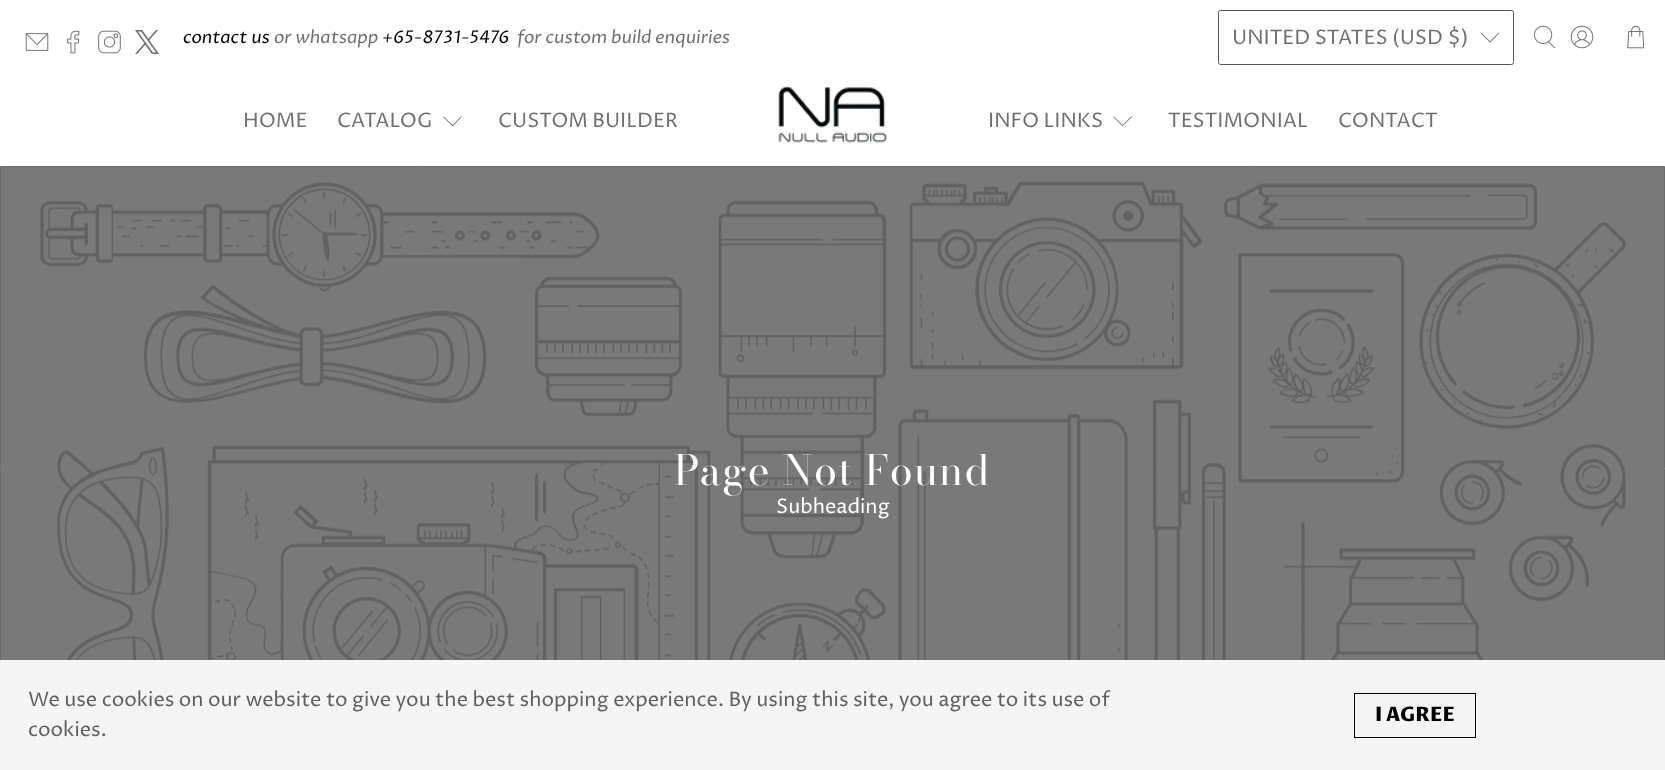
<!DOCTYPE html>
<meta charset="utf-8">
<style>body { margin: 0 } canvas { display: block }</style>
<canvas id="canvas" width="1665" height="770"></canvas>
<script type="module">
  const canvas = document.getElementById("canvas");
  const ctx = canvas.getContext("2d");
  ctx.miterLimit = 4;
  ctx.fontKerning = "normal";
  async function loadImage(src) {
    const img = new Image();
    img.src = src;
    await img.decode();
    return img;
  }

  ctx.fillStyle = "#ffffff";
  ctx.fillRect(0, 0, 1665, 770);
  ctx.drawImage(await loadImage("img1.png"), 25, 33, 24, 18);
  ctx.drawImage(await loadImage("img2.png"), 67, 30, 13, 24);
  ctx.drawImage(await loadImage("img3.png"), 98, 30, 23, 24);
  ctx.drawImage(await loadImage("img4.png"), 135, 30, 24, 24);
  ctx.font = "italic 17.5px Proza Libre";
  ctx.fillStyle = "#000000";
  ctx.fillText("contact us", 183, 43);
  ctx.fillStyle = "#6f6f6f";
  ctx.fillText("or whatsapp", 274, 43);
  ctx.fillStyle = "#000000";
  ctx.fillText("+65-8731-5476", 382, 43);
  ctx.fillStyle = "#6f6f6f";
  ctx.fillText("for custom build enquiries", 517, 43);
  ctx.beginPath();
  ctx.roundRect(1218.5, 10.5, 295, 54, 2);
  ctx.strokeStyle = "#565656";
  ctx.stroke();
  ctx.font = "20px Proza Libre";
  ctx.fillText("UNITED STATES (USD $)", 1232, 44);
  ctx.drawImage(await loadImage("img5.png"), 1480, 32, 20, 11);
  ctx.drawImage(await loadImage("img6.png"), 1534, 25, 21, 24);
  ctx.drawImage(await loadImage("img7.png"), 1570, 25, 24, 24);
  ctx.drawImage(await loadImage("img8.png"), 1627, 25, 18, 24);
  ctx.fillText("HOME", 243, 127);
  ctx.fillText("CATALOG", 337, 127);
  ctx.drawImage(await loadImage("img9.png"), 443, 116, 19, 11);
  ctx.fillText("CUSTOM BUILDER", 498, 127);
  ctx.drawImage(await loadImage("img10.png"), 778, 86, 109, 57);
  ctx.fillText("INFO LINKS", 988, 127);
  ctx.drawImage(await loadImage("img9.png"), 1113, 116, 19, 11);
  ctx.fillText("TESTIMONIAL", 1168, 127);
  ctx.fillText("CONTACT", 1338, 127);
  ctx.fillStyle = "#797979";
  ctx.beginPath();
  ctx.rect(0.5, 166.5, 1664, 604);
  ctx.fill();
  ctx.strokeStyle = "#6c6c6c";
  ctx.stroke();
  ctx.drawImage(await loadImage("img11.png"), 40, 181, 1586, 589);
  ctx.letterSpacing = "1.25px";
  ctx.font = "41.25px Bodoni Moda";
  ctx.fillStyle = "#ffffff";
  ctx.fillText("Page Not Found", 674, 485);
  ctx.letterSpacing = "0px";
  ctx.font = "20px Proza Libre";
  ctx.fillText("Subheading", 776, 513);
  ctx.fillStyle = "rgba(255, 255, 255, 0.93)";
  ctx.fillRect(0, 660, 1665, 110);
  ctx.fillStyle = "#606060";
  ctx.fillText("We use cookies on our website to give you the best shopping experience. By using this site, you agree to its use of", 28, 706);
  ctx.fillText("cookies.", 28, 736);
  ctx.strokeStyle = "#000000";
  ctx.strokeRect(1354.5, 693.5, 121, 44);
  ctx.font = "800 20px Proza Libre";
  ctx.fillStyle = "#000000";
  ctx.fillText("I AGREE", 1375, 721);
</script>
